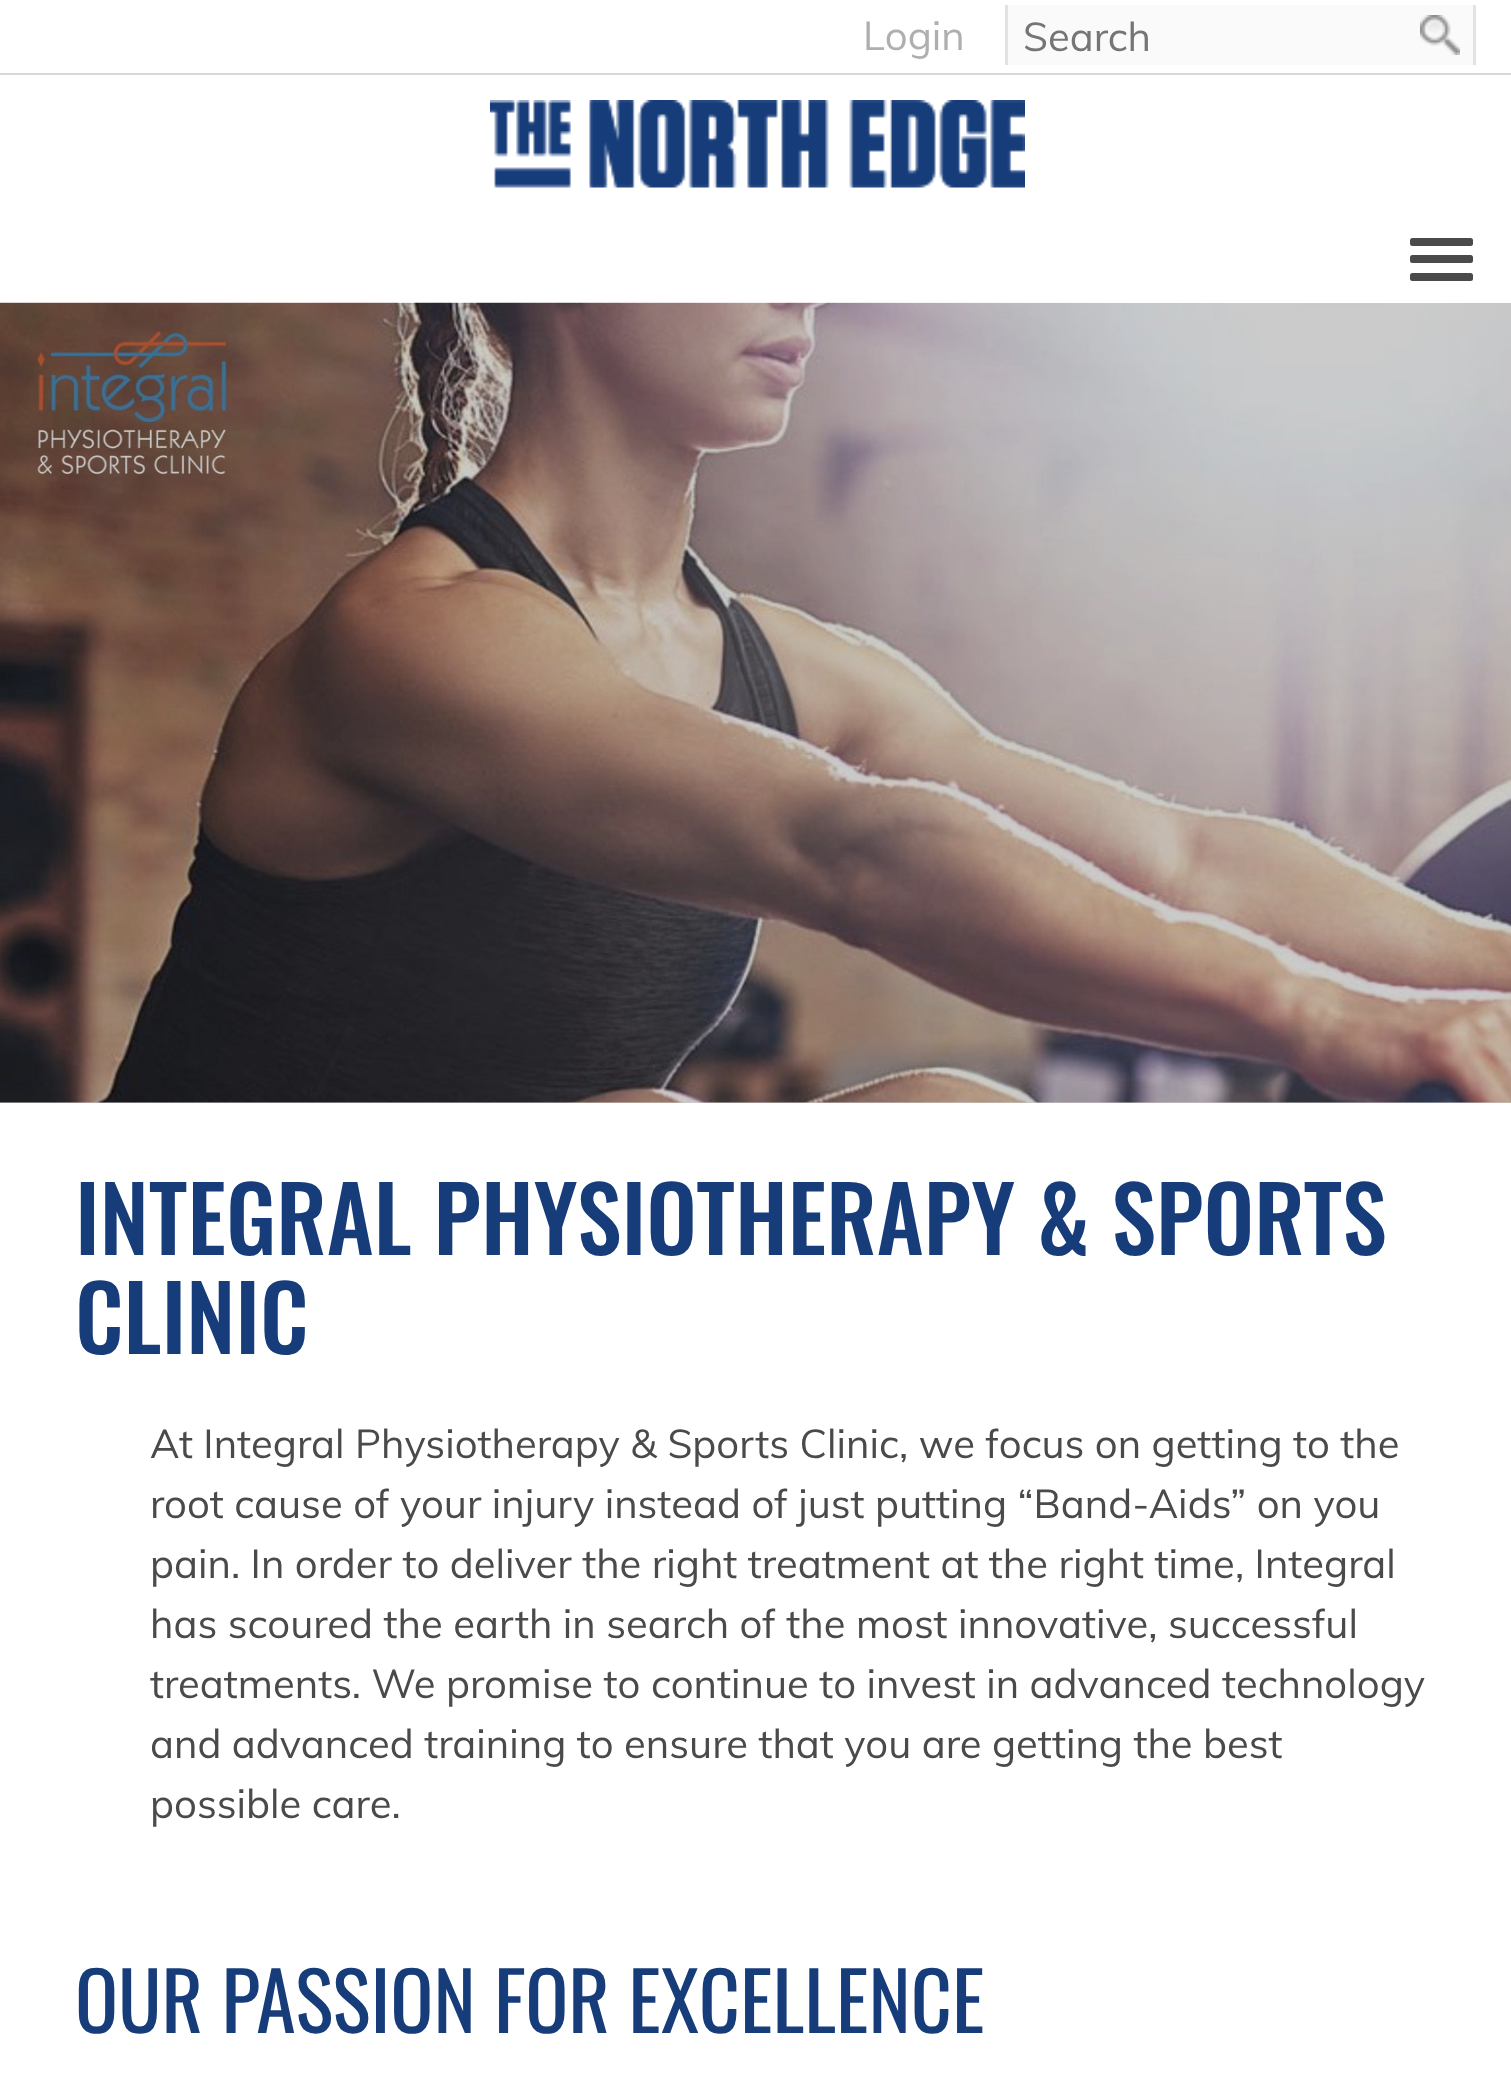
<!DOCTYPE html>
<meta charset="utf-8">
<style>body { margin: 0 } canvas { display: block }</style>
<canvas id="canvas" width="1511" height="2088"></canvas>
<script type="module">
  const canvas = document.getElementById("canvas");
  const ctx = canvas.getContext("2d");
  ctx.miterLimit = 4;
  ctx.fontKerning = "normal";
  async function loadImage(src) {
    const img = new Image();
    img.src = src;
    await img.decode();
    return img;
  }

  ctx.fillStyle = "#ffffff";
  ctx.fillRect(0, 0, 1511, 2088);
  ctx.fillStyle = "#cccccc";
  ctx.fillRect(0, 1102, 1511, 1);
  ctx.fillStyle = "#d7d7d7";
  ctx.fillRect(0, 73, 1511, 2);
  ctx.font = "40px Muli";
  ctx.fillStyle = "#afafaf";
  ctx.fillText("Login", 863, 50);
  ctx.fillStyle = "#fafafa";
  ctx.fillRect(1008, 5, 465, 60);
  ctx.fillStyle = "#e2e2e2";
  ctx.fillRect(1473, 5, 3, 60);
  ctx.fillRect(1005, 5, 3, 60);
  ctx.fillStyle = "#757575";
  ctx.fillText("Search", 1023, 51);
  ctx.drawImage(await loadImage("img1.png"), 1420, 15, 40, 40);
  ctx.drawImage(await loadImage("img2.png"), 490, 100, 535, 88);
  ctx.fillStyle = "#4a4a4a";
  ctx.beginPath();
  ctx.roundRect(1410, 238, 63, 8, 2.5);
  ctx.fill();
  ctx.beginPath();
  ctx.roundRect(1410, 255, 63, 8, 2.5);
  ctx.fill();
  ctx.beginPath();
  ctx.roundRect(1410, 273, 63, 8, 2.5);
  ctx.fill();
  ctx.drawImage(await loadImage("img3.png"), 0, 302, 1511, 801);
  ctx.font = "500 90px Oswald";
  ctx.fillStyle = "#163c7a";
  ctx.fillText("INTEGRAL PHYSIOTHERAPY & SPORTS", 75, 1255);
  ctx.fillText("CLINIC", 75, 1354);
  ctx.font = "40px Muli";
  ctx.fillStyle = "#4a4a4a";
  ctx.fillText("At Integral Physiotherapy & Sports Clinic, we focus on getting to the", 150, 1458);
  ctx.fillText("root cause of your injury instead of just putting “Band-Aids” on you", 150, 1518);
  ctx.fillText("pain. In order to deliver the right treatment at the right time, Integral", 150, 1578);
  ctx.fillText("has scoured the earth in search of the most innovative, successful", 150, 1638);
  ctx.fillText("treatments. We promise to continue to invest in advanced technology", 150, 1698);
  ctx.fillText("and advanced training to ensure that you are getting the best", 150, 1758);
  ctx.fillText("possible care.", 150, 1818);
  ctx.font = "80px Oswald";
  ctx.fillStyle = "#163c7a";
  ctx.fillText("OUR PASSION FOR EXCELLENCE", 75, 2033);
</script>
